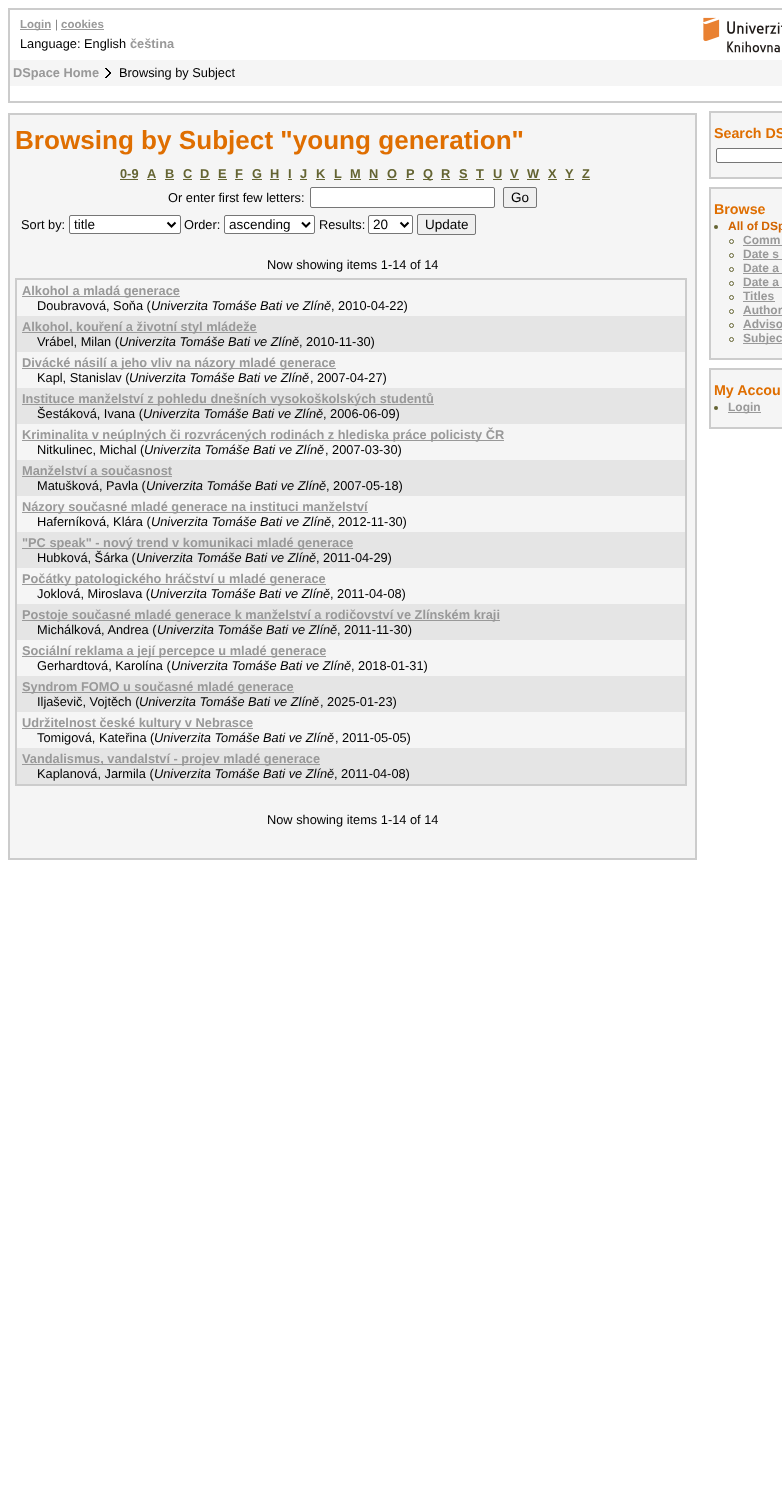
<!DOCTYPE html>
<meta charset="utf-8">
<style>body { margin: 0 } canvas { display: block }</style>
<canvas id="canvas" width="782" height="1504"></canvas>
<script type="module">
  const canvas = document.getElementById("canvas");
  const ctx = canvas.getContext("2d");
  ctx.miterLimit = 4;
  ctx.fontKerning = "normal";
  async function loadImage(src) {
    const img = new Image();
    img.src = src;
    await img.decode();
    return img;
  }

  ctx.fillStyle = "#ffffff";
  ctx.fillRect(0, 0, 782, 1504);
  ctx.strokeStyle = "#cccccc";
  ctx.lineWidth = 2;
  ctx.strokeRect(9, 9, 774, 93);
  ctx.fillStyle = "#999999";
  ctx.fillRect(20, 29, 31, 1);
  ctx.font = "bold 11.5px Liberation Sans";
  ctx.fillText("Login", 20, 28);
  ctx.font = "11.5px Liberation Sans";
  ctx.fillStyle = "#808080";
  ctx.fillText("|", 55, 28);
  ctx.font = "bold 11.5px Liberation Sans";
  ctx.fillStyle = "#999999";
  ctx.fillText("cookies", 61, 28);
  ctx.fillRect(61, 29, 43, 1);
  ctx.drawImage(await loadImage("img1.png"), 703, 17, 79, 36);
  ctx.font = "12.8px Liberation Sans";
  ctx.fillStyle = "#000000";
  ctx.fillText("Language: English", 20, 48);
  ctx.font = "bold 12.8px Liberation Sans";
  ctx.fillStyle = "#999999";
  ctx.fillText("čeština", 130, 48);
  ctx.fillStyle = "#f5f5f5";
  ctx.fillRect(10, 60, 772, 26);
  ctx.fillStyle = "#999999";
  ctx.fillText("DSpace Home", 13, 77);
  ctx.drawImage(await loadImage("img2.png"), 105, 68, 6, 10);
  ctx.font = "12.8px Liberation Sans";
  ctx.fillStyle = "#000000";
  ctx.fillText("Browsing by Subject", 119, 77);
  ctx.fillStyle = "#f5f5f5";
  ctx.beginPath();
  ctx.rect(9, 114, 687, 745);
  ctx.fill();
  ctx.stroke();
  ctx.font = "bold 26.1px Liberation Sans";
  ctx.fillStyle = "#df6e00";
  ctx.fillText("Browsing by Subject \"young generation\"", 15, 149);
  ctx.font = "bold 12.8px Liberation Sans";
  ctx.fillStyle = "#646432";
  ctx.fillText("0-9", 120, 178);
  ctx.fillRect(120, 179, 18, 1);
  ctx.fillText("A", 147, 178);
  ctx.fillRect(147, 179, 9, 1);
  ctx.fillText("B", 165, 178);
  ctx.fillRect(165, 179, 9, 1);
  ctx.fillText("C", 183, 178);
  ctx.fillRect(183, 179, 9, 1);
  ctx.fillText("D", 200, 178);
  ctx.fillRect(200, 179, 10, 1);
  ctx.fillText("E", 218, 178);
  ctx.fillRect(218, 179, 9, 1);
  ctx.fillText("F", 235, 178);
  ctx.fillRect(235, 179, 8, 1);
  ctx.fillText("G", 252, 178);
  ctx.fillRect(252, 179, 10, 1);
  ctx.fillText("H", 270, 178);
  ctx.fillRect(270, 179, 9, 1);
  ctx.fillText("I", 288, 178);
  ctx.fillRect(288, 179, 4, 1);
  ctx.fillText("J", 300, 178);
  ctx.fillRect(300, 179, 7, 1);
  ctx.fillText("K", 316, 178);
  ctx.fillRect(316, 179, 9, 1);
  ctx.fillText("L", 334, 178);
  ctx.fillRect(334, 179, 7, 1);
  ctx.fillText("M", 350, 178);
  ctx.fillRect(350, 179, 11, 1);
  ctx.fillText("N", 369, 178);
  ctx.fillRect(369, 179, 9, 1);
  ctx.fillText("O", 387, 178);
  ctx.fillRect(387, 179, 10, 1);
  ctx.fillText("P", 406, 178);
  ctx.fillRect(406, 179, 8, 1);
  ctx.fillRect(423, 179, 10, 1);
  ctx.fillText("Q", 423, 178);
  ctx.fillText("R", 441, 178);
  ctx.fillRect(441, 179, 9, 1);
  ctx.fillText("S", 459, 178);
  ctx.fillRect(459, 179, 9, 1);
  ctx.fillText("T", 476, 178);
  ctx.fillRect(476, 179, 8, 1);
  ctx.fillText("U", 493, 178);
  ctx.fillRect(493, 179, 9, 1);
  ctx.fillText("V", 510, 178);
  ctx.fillRect(510, 179, 9, 1);
  ctx.fillText("W", 527, 178);
  ctx.fillRect(527, 179, 13, 1);
  ctx.fillText("X", 548, 178);
  ctx.fillRect(548, 179, 9, 1);
  ctx.fillText("Y", 565, 178);
  ctx.fillRect(565, 179, 9, 1);
  ctx.fillText("Z", 582, 178);
  ctx.fillRect(582, 179, 8, 1);
  ctx.font = "12.8px Liberation Sans";
  ctx.fillStyle = "#000000";
  ctx.fillText("Or enter first few letters:", 168, 202);
  ctx.fillStyle = "#ffffff";
  ctx.beginPath();
  ctx.roundRect(310.5, 187.5, 184, 20, 1.5);
  ctx.fill();
  ctx.strokeStyle = "#767676";
  ctx.lineWidth = 1;
  ctx.stroke();
  ctx.fillStyle = "#efefef";
  ctx.beginPath();
  ctx.roundRect(503.5, 187.5, 33, 20, 1.5);
  ctx.fill();
  ctx.stroke();
  ctx.font = "13.5px Liberation Sans";
  ctx.fillStyle = "#000000";
  ctx.fillText("Go", 511, 202);
  ctx.font = "12.8px Liberation Sans";
  ctx.fillText("Sort by:", 21, 229);
  ctx.fillStyle = "#ffffff";
  ctx.beginPath();
  ctx.roundRect(69.5, 215.5, 111, 18, 1.5);
  ctx.fill();
  ctx.stroke();
  ctx.beginPath();
  ctx.moveTo(167.5, 222.5);
  ctx.lineTo(171.5, 226.5);
  ctx.lineTo(175.5, 222.5);
  ctx.strokeStyle = "#000000";
  ctx.lineWidth = 2;
  ctx.stroke();
  ctx.font = "13.5px Liberation Sans";
  ctx.fillStyle = "#000000";
  ctx.fillText("title", 74, 229);
  ctx.font = "12.8px Liberation Sans";
  ctx.fillText("Order:", 184, 229);
  ctx.fillStyle = "#ffffff";
  ctx.beginPath();
  ctx.roundRect(224.5, 215.5, 90, 18, 1.5);
  ctx.fill();
  ctx.strokeStyle = "#767676";
  ctx.lineWidth = 1;
  ctx.stroke();
  ctx.beginPath();
  ctx.moveTo(302, 222.5);
  ctx.lineTo(306, 226.5);
  ctx.lineTo(310, 222.5);
  ctx.strokeStyle = "#000000";
  ctx.lineWidth = 2;
  ctx.stroke();
  ctx.font = "13.5px Liberation Sans";
  ctx.fillStyle = "#000000";
  ctx.fillText("ascending", 229, 229);
  ctx.font = "12.8px Liberation Sans";
  ctx.fillText("Results:", 319, 229);
  ctx.fillStyle = "#ffffff";
  ctx.beginPath();
  ctx.roundRect(368.5, 215.5, 44, 18, 1.5);
  ctx.fill();
  ctx.strokeStyle = "#767676";
  ctx.lineWidth = 1;
  ctx.stroke();
  ctx.beginPath();
  ctx.moveTo(400.5, 222.5);
  ctx.lineTo(404.5, 226.5);
  ctx.lineTo(408.5, 222.5);
  ctx.strokeStyle = "#000000";
  ctx.lineWidth = 2;
  ctx.stroke();
  ctx.font = "13.5px Liberation Sans";
  ctx.fillStyle = "#000000";
  ctx.fillText("20", 373, 229);
  ctx.fillStyle = "#efefef";
  ctx.beginPath();
  ctx.roundRect(417.5, 214.5, 58, 20, 1.5);
  ctx.fill();
  ctx.strokeStyle = "#767676";
  ctx.lineWidth = 1;
  ctx.stroke();
  ctx.fillStyle = "#000000";
  ctx.fillText("Update", 425, 229);
  ctx.font = "12.8px Liberation Sans";
  ctx.fillText("Now showing items 1-14 of 14", 267, 269);
  ctx.strokeStyle = "#cccccc";
  ctx.lineWidth = 2;
  ctx.strokeRect(16, 279, 670, 506);
  ctx.fillStyle = "#999999";
  ctx.fillRect(22, 296, 158, 1);
  ctx.font = "bold 12.8px Liberation Sans";
  ctx.fillText("Alkohol a mladá generace", 22, 295);
  ctx.font = "12.8px Liberation Sans";
  ctx.fillStyle = "#000000";
  ctx.fillText("Doubravová, Soňa (", 37, 310);
  ctx.font = "italic 12.8px Liberation Sans";
  ctx.fillText("Univerzita Tomáše Bati ve Zlíně", 151, 310);
  ctx.font = "12.8px Liberation Sans";
  ctx.fillText(", 2010-04-22)", 331, 310);
  ctx.fillStyle = "#e5e5e5";
  ctx.fillRect(17, 316, 668, 36);
  ctx.fillStyle = "#999999";
  ctx.fillRect(22, 332, 235, 1);
  ctx.font = "bold 12.8px Liberation Sans";
  ctx.fillText("Alkohol, kouření a životní styl mládeže", 22, 331);
  ctx.font = "12.8px Liberation Sans";
  ctx.fillStyle = "#000000";
  ctx.fillText("Vrábel, Milan (", 37, 346);
  ctx.font = "italic 12.8px Liberation Sans";
  ctx.fillText("Univerzita Tomáše Bati ve Zlíně", 119, 346);
  ctx.font = "12.8px Liberation Sans";
  ctx.fillText(", 2010-11-30)", 299, 346);
  ctx.fillStyle = "#999999";
  ctx.fillRect(22, 368, 314, 1);
  ctx.font = "bold 12.8px Liberation Sans";
  ctx.fillText("Divácké násilí a jeho vliv na názory mladé generace", 22, 367);
  ctx.font = "12.8px Liberation Sans";
  ctx.fillStyle = "#000000";
  ctx.fillText("Kapl, Stanislav (", 37, 382);
  ctx.font = "italic 12.8px Liberation Sans";
  ctx.fillText("Univerzita Tomáše Bati ve Zlíně", 129, 382);
  ctx.font = "12.8px Liberation Sans";
  ctx.fillText(", 2007-04-27)", 310, 382);
  ctx.fillStyle = "#e5e5e5";
  ctx.fillRect(17, 388, 668, 36);
  ctx.fillStyle = "#999999";
  ctx.fillRect(22, 404, 412, 1);
  ctx.font = "bold 12.8px Liberation Sans";
  ctx.fillText("Instituce manželství z pohledu dnešních vysokoškolských studentů", 22, 403);
  ctx.font = "12.8px Liberation Sans";
  ctx.fillStyle = "#000000";
  ctx.fillText("Šestáková, Ivana (", 37, 418);
  ctx.font = "italic 12.8px Liberation Sans";
  ctx.fillText("Univerzita Tomáše Bati ve Zlíně", 143, 418);
  ctx.font = "12.8px Liberation Sans";
  ctx.fillText(", 2006-06-09)", 323, 418);
  ctx.fillStyle = "#999999";
  ctx.fillRect(22, 440, 482, 1);
  ctx.font = "bold 12.8px Liberation Sans";
  ctx.fillText("Kriminalita v neúplných či rozvrácených rodinách z hlediska práce policisty ČR", 22, 439);
  ctx.font = "12.8px Liberation Sans";
  ctx.fillStyle = "#000000";
  ctx.fillText("Nitkulinec, Michal (", 37, 454);
  ctx.font = "italic 12.8px Liberation Sans";
  ctx.fillText("Univerzita Tomáše Bati ve Zlíně", 144, 454);
  ctx.font = "12.8px Liberation Sans";
  ctx.fillText(", 2007-03-30)", 325, 454);
  ctx.fillStyle = "#e5e5e5";
  ctx.fillRect(17, 460, 668, 36);
  ctx.font = "bold 12.8px Liberation Sans";
  ctx.fillStyle = "#999999";
  ctx.fillText("Manželství a současnost", 22, 475);
  ctx.fillRect(22, 476, 150, 1);
  ctx.font = "12.8px Liberation Sans";
  ctx.fillStyle = "#000000";
  ctx.fillText("Matušková, Pavla (", 37, 490);
  ctx.font = "italic 12.8px Liberation Sans";
  ctx.fillText("Univerzita Tomáše Bati ve Zlíně", 146, 490);
  ctx.font = "12.8px Liberation Sans";
  ctx.fillText(", 2007-05-18)", 326, 490);
  ctx.fillStyle = "#999999";
  ctx.fillRect(22, 512, 346, 1);
  ctx.font = "bold 12.8px Liberation Sans";
  ctx.fillText("Názory současné mladé generace na instituci manželství", 22, 511);
  ctx.font = "12.8px Liberation Sans";
  ctx.fillStyle = "#000000";
  ctx.fillText("Haferníková, Klára (", 37, 526);
  ctx.font = "italic 12.8px Liberation Sans";
  ctx.fillText("Univerzita Tomáše Bati ve Zlíně", 151, 526);
  ctx.font = "12.8px Liberation Sans";
  ctx.fillText(", 2012-11-30)", 331, 526);
  ctx.fillStyle = "#e5e5e5";
  ctx.fillRect(17, 532, 668, 36);
  ctx.fillStyle = "#999999";
  ctx.fillRect(22, 548, 331, 1);
  ctx.font = "bold 12.8px Liberation Sans";
  ctx.fillText("\"PC speak\" - nový trend v komunikaci mladé generace", 22, 547);
  ctx.font = "12.8px Liberation Sans";
  ctx.fillStyle = "#000000";
  ctx.fillText("Hubková, Šárka (", 37, 562);
  ctx.font = "italic 12.8px Liberation Sans";
  ctx.fillText("Univerzita Tomáše Bati ve Zlíně", 136, 562);
  ctx.font = "12.8px Liberation Sans";
  ctx.fillText(", 2011-04-29)", 316, 562);
  ctx.fillStyle = "#999999";
  ctx.fillRect(22, 584, 304, 1);
  ctx.font = "bold 12.8px Liberation Sans";
  ctx.fillText("Počátky patologického hráčství u mladé generace", 22, 583);
  ctx.font = "12.8px Liberation Sans";
  ctx.fillStyle = "#000000";
  ctx.fillText("Joklová, Miroslava (", 37, 598);
  ctx.font = "italic 12.8px Liberation Sans";
  ctx.fillText("Univerzita Tomáše Bati ve Zlíně", 150, 598);
  ctx.font = "12.8px Liberation Sans";
  ctx.fillText(", 2011-04-08)", 330, 598);
  ctx.fillStyle = "#e5e5e5";
  ctx.fillRect(17, 604, 668, 36);
  ctx.fillStyle = "#999999";
  ctx.fillRect(22, 620, 478, 1);
  ctx.font = "bold 12.8px Liberation Sans";
  ctx.fillText("Postoje současné mladé generace k manželství a rodičovství ve Zlínském kraji", 22, 619);
  ctx.font = "12.8px Liberation Sans";
  ctx.fillStyle = "#000000";
  ctx.fillText("Michálková, Andrea (", 37, 634);
  ctx.font = "italic 12.8px Liberation Sans";
  ctx.fillText("Univerzita Tomáše Bati ve Zlíně", 157, 634);
  ctx.font = "12.8px Liberation Sans";
  ctx.fillText(", 2011-11-30)", 337, 634);
  ctx.fillStyle = "#999999";
  ctx.fillRect(22, 656, 304, 1);
  ctx.font = "bold 12.8px Liberation Sans";
  ctx.fillText("Sociální reklama a její percepce u mladé generace", 22, 655);
  ctx.font = "12.8px Liberation Sans";
  ctx.fillStyle = "#000000";
  ctx.fillText("Gerhardtová, Karolína (", 37, 670);
  ctx.font = "italic 12.8px Liberation Sans";
  ctx.fillText("Univerzita Tomáše Bati ve Zlíně", 171, 670);
  ctx.font = "12.8px Liberation Sans";
  ctx.fillText(", 2018-01-31)", 351, 670);
  ctx.fillStyle = "#e5e5e5";
  ctx.fillRect(17, 676, 668, 36);
  ctx.fillStyle = "#999999";
  ctx.fillRect(22, 692, 272, 1);
  ctx.font = "bold 12.8px Liberation Sans";
  ctx.fillText("Syndrom FOMO u současné mladé generace", 22, 691);
  ctx.font = "12.8px Liberation Sans";
  ctx.fillStyle = "#000000";
  ctx.fillText("Iljaševič, Vojtěch (", 37, 706);
  ctx.font = "italic 12.8px Liberation Sans";
  ctx.fillText("Univerzita Tomáše Bati ve Zlíně", 139, 706);
  ctx.font = "12.8px Liberation Sans";
  ctx.fillText(", 2025-01-23)", 320, 706);
  ctx.fillStyle = "#999999";
  ctx.fillRect(22, 728, 231, 1);
  ctx.font = "bold 12.8px Liberation Sans";
  ctx.fillText("Udržitelnost české kultury v Nebrasce", 22, 727);
  ctx.font = "12.8px Liberation Sans";
  ctx.fillStyle = "#000000";
  ctx.fillText("Tomigová, Kateřina (", 37, 742);
  ctx.font = "italic 12.8px Liberation Sans";
  ctx.fillText("Univerzita Tomáše Bati ve Zlíně", 154, 742);
  ctx.font = "12.8px Liberation Sans";
  ctx.fillText(", 2011-05-05)", 335, 742);
  ctx.fillStyle = "#e5e5e5";
  ctx.fillRect(17, 748, 668, 36);
  ctx.fillStyle = "#999999";
  ctx.fillRect(22, 764, 298, 1);
  ctx.font = "bold 12.8px Liberation Sans";
  ctx.fillText("Vandalismus, vandalství - projev mladé generace", 22, 763);
  ctx.font = "12.8px Liberation Sans";
  ctx.fillStyle = "#000000";
  ctx.fillText("Kaplanová, Jarmila (", 37, 778);
  ctx.font = "italic 12.8px Liberation Sans";
  ctx.fillText("Univerzita Tomáše Bati ve Zlíně", 154, 778);
  ctx.font = "12.8px Liberation Sans";
  ctx.fillText(", 2011-04-08)", 334, 778);
  ctx.fillText("Now showing items 1-14 of 14", 267, 824);
  ctx.fillStyle = "#f5f5f5";
  ctx.beginPath();
  ctx.rect(710, 112, 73, 66);
  ctx.fill();
  ctx.stroke();
  ctx.fillStyle = "#ffffff";
  ctx.beginPath();
  ctx.roundRect(716.5, 148.5, 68, 14, 1.5);
  ctx.fill();
  ctx.strokeStyle = "#767676";
  ctx.lineWidth = 1;
  ctx.stroke();
  ctx.font = "bold 14.25px Liberation Sans";
  ctx.fillStyle = "#df6e00";
  ctx.fillText("Search DS", 714, 138);
  ctx.fillStyle = "#f5f5f5";
  ctx.beginPath();
  ctx.rect(710, 188, 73, 171);
  ctx.fill();
  ctx.strokeStyle = "#cccccc";
  ctx.lineWidth = 2;
  ctx.stroke();
  ctx.fillStyle = "#df6e00";
  ctx.fillText("Browse", 714, 214);
  ctx.fillStyle = "#646432";
  ctx.beginPath();
  ctx.arc(716, 227, 2, 0, Math.PI * 2);
  ctx.fill();
  ctx.font = "bold 12px Liberation Sans";
  ctx.fillStyle = "#d26400";
  ctx.fillText("All of DSp", 728, 230);
  ctx.beginPath();
  ctx.arc(731.5, 241.5, 2, 0, Math.PI * 2);
  ctx.strokeStyle = "#646432";
  ctx.lineWidth = 1;
  ctx.stroke();
  ctx.fillStyle = "#999999";
  ctx.fillText("Comm", 743, 244);
  ctx.fillRect(743, 245, 39, 1);
  ctx.beginPath();
  ctx.arc(731.5, 255.5, 2, 0, Math.PI * 2);
  ctx.stroke();
  ctx.fillText("Date s", 743, 258);
  ctx.fillRect(743, 259, 39, 1);
  ctx.beginPath();
  ctx.arc(731.5, 269.5, 2, 0, Math.PI * 2);
  ctx.stroke();
  ctx.fillText("Date a", 743, 272);
  ctx.fillRect(743, 273, 39, 1);
  ctx.beginPath();
  ctx.arc(731.5, 283.5, 2, 0, Math.PI * 2);
  ctx.stroke();
  ctx.fillText("Date a", 743, 286);
  ctx.fillRect(743, 287, 39, 1);
  ctx.beginPath();
  ctx.arc(731.5, 297.5, 2, 0, Math.PI * 2);
  ctx.stroke();
  ctx.fillText("Titles", 743, 300);
  ctx.fillRect(743, 301, 32, 1);
  ctx.beginPath();
  ctx.arc(731.5, 311.5, 2, 0, Math.PI * 2);
  ctx.stroke();
  ctx.fillText("Author", 743, 314);
  ctx.fillRect(743, 315, 39, 1);
  ctx.beginPath();
  ctx.arc(731.5, 325.5, 2, 0, Math.PI * 2);
  ctx.stroke();
  ctx.fillText("Adviso", 743, 328);
  ctx.fillRect(743, 329, 39, 1);
  ctx.beginPath();
  ctx.arc(731.5, 339.5, 2, 0, Math.PI * 2);
  ctx.stroke();
  ctx.fillRect(743, 343, 39, 1);
  ctx.fillText("Subjec", 743, 342);
  ctx.fillStyle = "#f5f5f5";
  ctx.beginPath();
  ctx.rect(710, 369, 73, 59);
  ctx.fill();
  ctx.strokeStyle = "#cccccc";
  ctx.lineWidth = 2;
  ctx.stroke();
  ctx.font = "bold 14.25px Liberation Sans";
  ctx.fillStyle = "#df6e00";
  ctx.fillText("My Accou", 714, 395);
  ctx.fillStyle = "#646432";
  ctx.beginPath();
  ctx.arc(716, 408, 2, 0, Math.PI * 2);
  ctx.fill();
  ctx.fillStyle = "#999999";
  ctx.fillRect(728, 412, 33, 1);
  ctx.font = "bold 12px Liberation Sans";
  ctx.fillText("Login", 728, 411);
</script>
